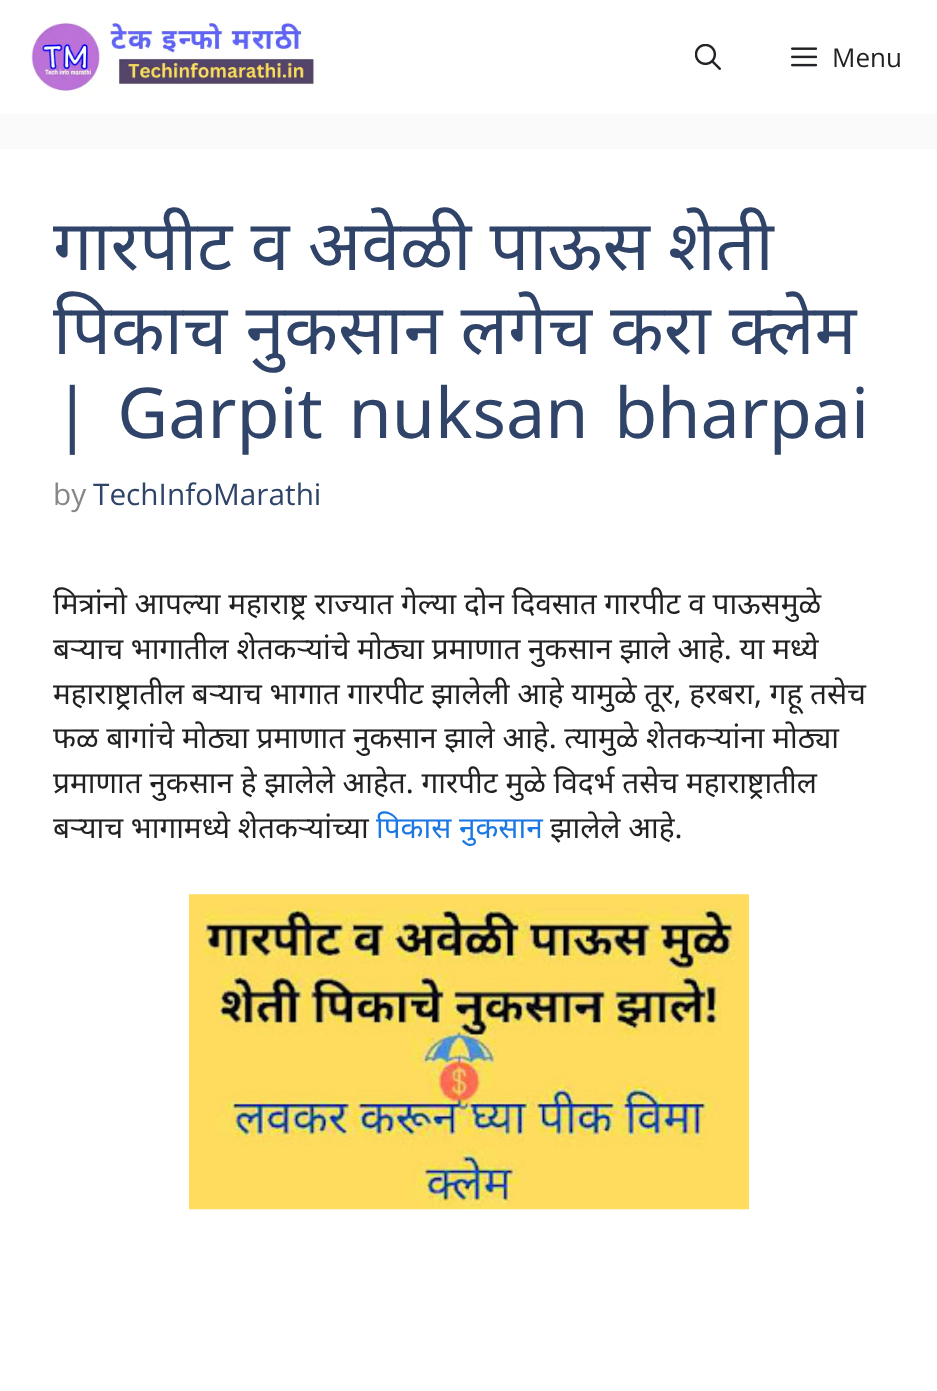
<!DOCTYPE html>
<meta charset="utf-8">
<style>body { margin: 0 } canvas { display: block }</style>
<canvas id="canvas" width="937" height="1391"></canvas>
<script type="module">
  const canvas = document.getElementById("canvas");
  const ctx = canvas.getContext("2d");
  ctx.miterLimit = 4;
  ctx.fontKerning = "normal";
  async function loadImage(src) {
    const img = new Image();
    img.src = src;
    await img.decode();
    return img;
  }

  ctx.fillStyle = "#fafafa";
  ctx.fillRect(0, 0, 937, 1391);
  ctx.fillStyle = "#ffffff";
  ctx.fillRect(0, 0, 937, 114);
  ctx.drawImage(await loadImage("img1.png"), 31, 22, 302, 74);
  ctx.drawImage(await loadImage("img2.png"), 695, 44, 26, 26);
  ctx.drawImage(await loadImage("img3.png"), 791, 47, 26, 20);
  ctx.font = "26px Open Sans";
  ctx.fillStyle = "#212121";
  ctx.fillText("Menu", 832, 67);
  ctx.fillStyle = "#ffffff";
  ctx.fillRect(0, 149, 937, 1242);
  ctx.font = "70px Noto Sans";
  ctx.fillStyle = "#2f4468";
  ctx.fillText("गारपीट व अवेळी पाऊस शेती", 53, 270);
  ctx.fillText("पिकाच नुकसान लगेच करा क्लेम", 53, 354);
  ctx.wordSpacing = "7.5px";
  ctx.fillText("| Garpit nuksan bharpai", 53, 438);
  ctx.wordSpacing = "0px";
  ctx.font = "29.75px Open Sans";
  ctx.fillStyle = "#878787";
  ctx.fillText("by", 53, 505);
  ctx.fillStyle = "#2f4468";
  ctx.fillText("TechInfoMarathi", 93, 505);
  ctx.font = "29.75px Noto Sans";
  ctx.fillStyle = "#212121";
  ctx.fillText("मित्रांनो आपल्या महाराष्ट्र राज्यात गेल्या दोन दिवसात गारपीट व पाऊसमुळे", 53, 614);
  ctx.fillText("बऱ्याच भागातील शेतकऱ्यांचे मोठ्या प्रमाणात नुकसान झाले आहे. या मध्ये", 53, 659);
  ctx.fillText("महाराष्ट्रातील बऱ्याच भागात गारपीट झालेली आहे यामुळे तूर, हरबरा, गहू तसेच", 53, 704);
  ctx.fillText("फळ बागांचे मोठ्या प्रमाणात नुकसान झाले आहे. त्यामुळे शेतकऱ्यांना मोठ्या", 53, 748);
  ctx.fillText("प्रमाणात नुकसान हे झालेले आहेत. गारपीट मुळे विदर्भ तसेच महाराष्ट्रातील", 53, 793);
  ctx.fillText("बऱ्याच भागामध्ये शेतकऱ्यांच्या", 53, 838);
  ctx.fillStyle = "#1b78e2";
  ctx.fillText("पिकास नुकसान", 376, 838);
  ctx.fillStyle = "#212121";
  ctx.fillText("झालेले आहे.", 550, 838);
  ctx.drawImage(await loadImage("img4.png"), 189, 894, 560, 316);
</script>
